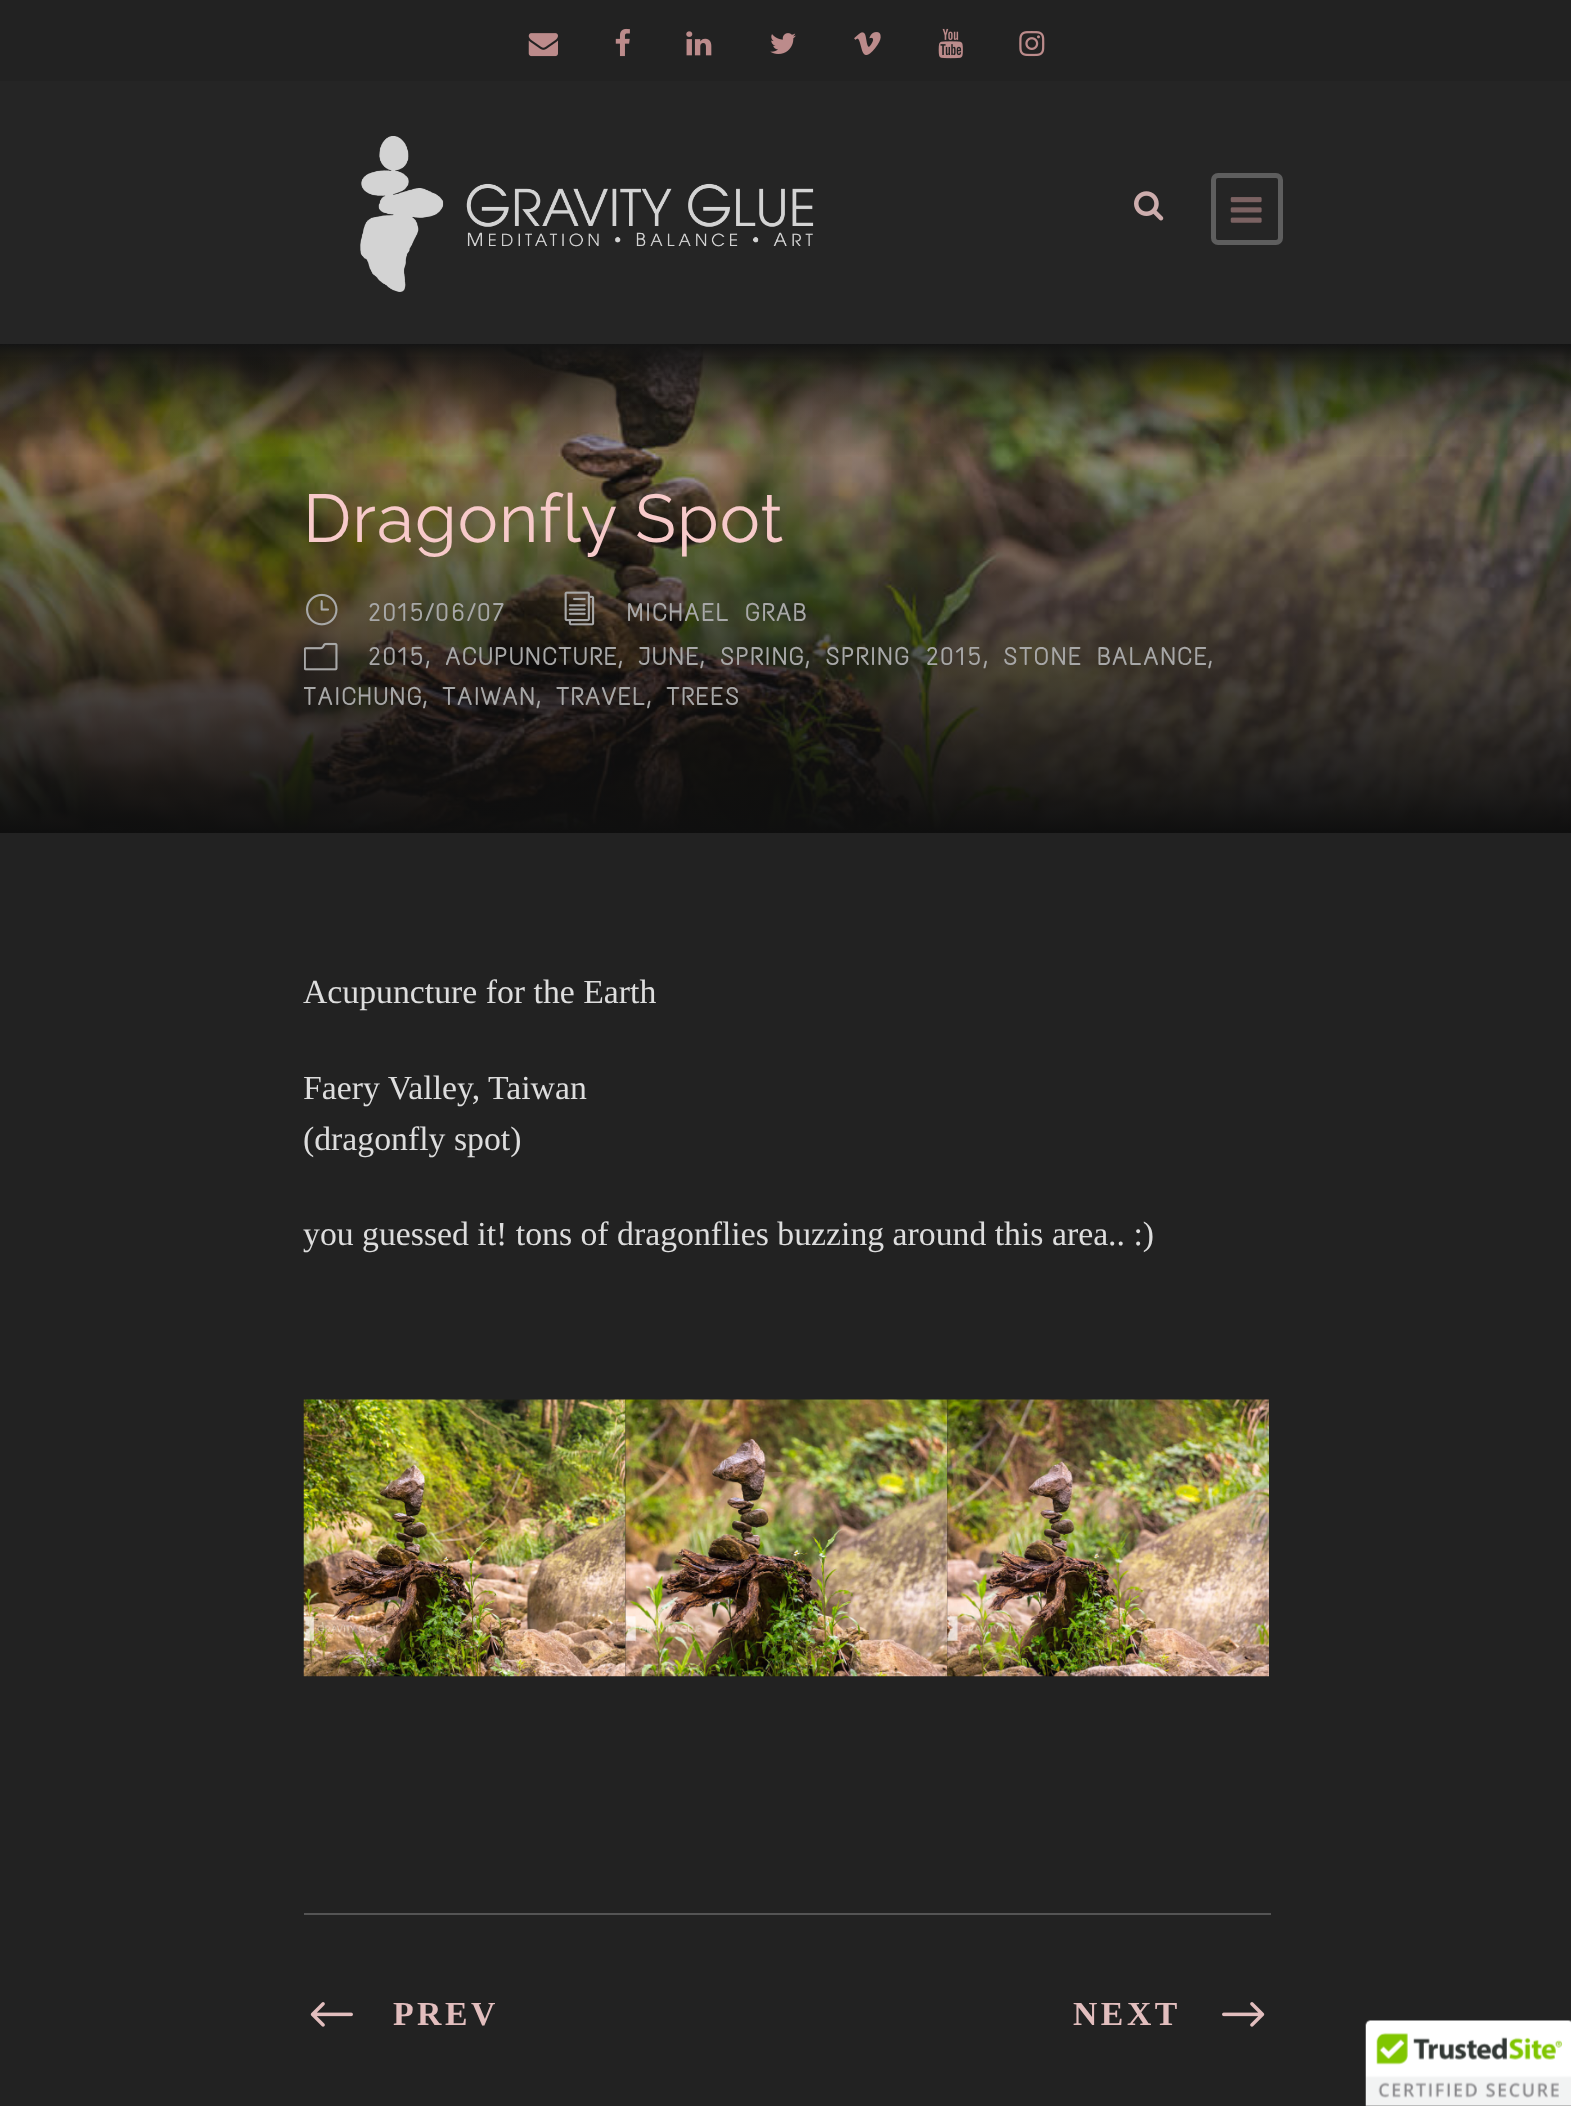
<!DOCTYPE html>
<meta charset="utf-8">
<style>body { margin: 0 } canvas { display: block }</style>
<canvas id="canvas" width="1571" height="2106"></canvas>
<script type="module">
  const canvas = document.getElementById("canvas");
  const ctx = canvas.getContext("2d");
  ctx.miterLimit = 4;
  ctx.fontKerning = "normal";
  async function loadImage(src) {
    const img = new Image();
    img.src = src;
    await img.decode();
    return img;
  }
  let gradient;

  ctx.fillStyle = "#222222";
  ctx.fillRect(0, 0, 1571, 2106);
  ctx.drawImage(await loadImage("img1.png"), 528, 33, 30, 24);
  ctx.drawImage(await loadImage("img2.png"), 615, 28, 15, 29);
  ctx.drawImage(await loadImage("img3.png"), 686, 31, 26, 25);
  ctx.drawImage(await loadImage("img4.png"), 770, 33, 26, 21);
  ctx.drawImage(await loadImage("img5.png"), 854, 32, 27, 23);
  ctx.drawImage(await loadImage("img6.png"), 938, 28, 25, 31);
  ctx.drawImage(await loadImage("img7.png"), 1019, 31, 26, 26);
  ctx.fillStyle = "#252525";
  ctx.fillRect(0, 81, 1571, 263);
  ctx.drawImage(await loadImage("img8.png"), 360, 136, 454, 156);
  ctx.drawImage(await loadImage("img9.png"), 1134, 191, 30, 30);
  ctx.beginPath();
  ctx.roundRect(1213.5, 175.5, 67, 67, 4.5);
  ctx.strokeStyle = "#5e5e5e";
  ctx.lineWidth = 5;
  ctx.stroke();
  ctx.drawImage(await loadImage("img10.png"), 1230, 197, 32, 26);
  ctx.drawImage(await loadImage("img11.png"), 0, 345, 1571, 485);
  gradient = ctx.createLinearGradient(786, 457, 786, 344);
  gradient.addColorStop(0, "rgba(20, 20, 20, 0)");
  gradient.addColorStop(1, "#141414");
  ctx.fillStyle = gradient;
  ctx.fillRect(0, 344, 1571, 111);
  gradient = ctx.createLinearGradient(786, 299, 786, 833);
  gradient.addColorStop(0, "rgba(15, 15, 15, 0)");
  gradient.addColorStop(1, "#0f0f0f");
  ctx.fillStyle = gradient;
  ctx.fillRect(0, 357, 1571, 476);
  ctx.letterSpacing = "1.1px";
  ctx.font = "67.5px Raleway";
  ctx.fillStyle = "#f7caca";
  ctx.fillText("Dragonfly Spot", 303, 542);
  ctx.drawImage(await loadImage("img12.png"), 306, 593, 32, 33);
  ctx.letterSpacing = "2.25px";
  ctx.font = "bold 24.75px Text Me One";
  ctx.fillStyle = "#a8a8a8";
  ctx.fillText("2015/06/07", 368, 621);
  ctx.drawImage(await loadImage("img13.png"), 564, 591, 31, 35);
  ctx.fillText("MICHAEL GRAB", 627, 621);
  ctx.drawImage(await loadImage("img14.png"), 304, 642, 34, 29);
  ctx.fillText("2015, ACUPUNCTURE, JUNE, SPRING, SPRING 2015, STONE BALANCE,", 368, 665);
  ctx.save();
  ctx.beginPath();
  ctx.rect(304, 479, 967, 241);
  ctx.clip();
  ctx.fillText("TAICHUNG", 303, 705);
  ctx.restore();
  ctx.fillText(", TAIWAN, TRAVEL, TREES", 423, 705);
  ctx.letterSpacing = "0px";
  ctx.font = "33.75px Liberation Serif";
  ctx.fillStyle = "#dddddd";
  ctx.fillText("Acupuncture for the Earth", 303, 1003);
  ctx.fillText("Faery Valley, Taiwan", 303, 1099);
  ctx.fillText("(dragonfly spot)", 303, 1150);
  ctx.fillText("you guessed it! tons of dragonflies buzzing around this area.. :)", 303, 1245);
  ctx.drawImage(await loadImage("img15.png"), 303, 1399, 323, 278);
  ctx.drawImage(await loadImage("img16.png"), 625, 1399, 323, 278);
  ctx.drawImage(await loadImage("img17.png"), 947, 1399, 322, 278);
  ctx.fillStyle = "#545454";
  ctx.fillRect(304, 1913, 967, 2);
  ctx.drawImage(await loadImage("img18.png"), 310, 2002, 43, 25);
  ctx.letterSpacing = "3.5px";
  ctx.font = "bold 33.75px Liberation Serif";
  ctx.fillStyle = "#e2bebe";
  ctx.fillText("PREV", 393, 2025);
  ctx.fillText("NEXT", 1073, 2025);
  ctx.drawImage(await loadImage("img19.png"), 1222, 2002, 43, 25);
  ctx.drawImage(await loadImage("img20.png"), 1365, 2020, 206, 86);
</script>
